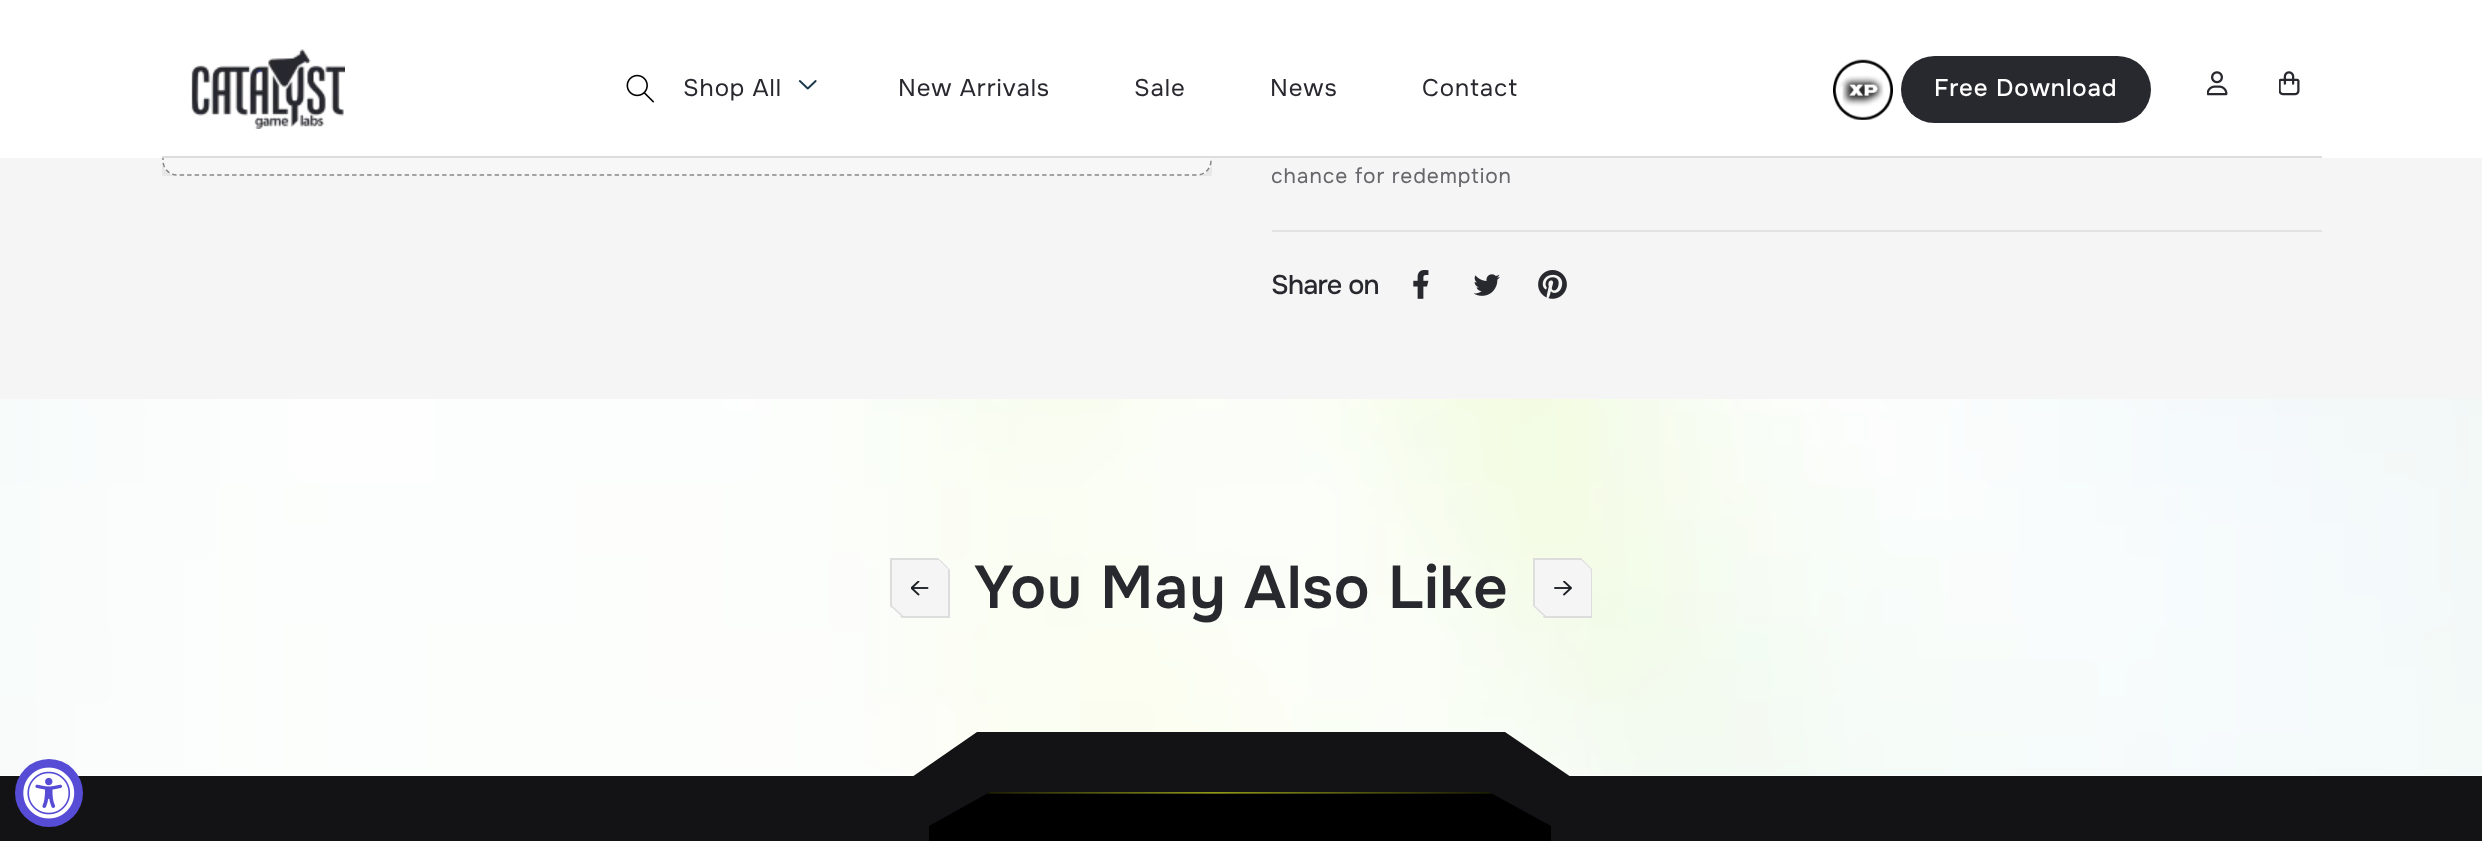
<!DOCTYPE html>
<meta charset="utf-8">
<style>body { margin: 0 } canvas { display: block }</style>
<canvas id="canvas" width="2482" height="841"></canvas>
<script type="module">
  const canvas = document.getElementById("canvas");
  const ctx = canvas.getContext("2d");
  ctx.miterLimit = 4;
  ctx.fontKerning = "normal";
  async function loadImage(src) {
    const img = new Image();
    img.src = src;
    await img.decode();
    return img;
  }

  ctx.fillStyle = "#ffffff";
  ctx.fillRect(0, 0, 2482, 841);
  ctx.fillStyle = "#f5f5f5";
  ctx.fillRect(0, 158, 2482, 241);
  ctx.save();
  ctx.beginPath();
  ctx.rect(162, 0, 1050, 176);
  ctx.clip();
  ctx.fillStyle = "rgba(0, 0, 0, 0.1)";
  ctx.filter = "blur(19px)";
  ctx.beginPath();
  ctx.roundRect(156, -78, 1062, 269, 21);
  ctx.fill();
  ctx.filter = "none";
  ctx.restore();
  ctx.fillStyle = "#f7f7f8";
  ctx.beginPath();
  ctx.roundRect(162, -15, 1050, 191, 15);
  ctx.fill();
  ctx.beginPath();
  ctx.moveTo(177, -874);
  ctx.lineTo(1197, -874);
  ctx.bezierCurveTo(1205, -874, 1211, -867.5, 1211, -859.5);
  ctx.lineTo(1211, 160.5);
  ctx.bezierCurveTo(1211, 168.5, 1205, 175, 1197, 175);
  ctx.lineTo(177, 175);
  ctx.bezierCurveTo(169, 175, 163, 168.5, 163, 160.5);
  ctx.lineTo(163, -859.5);
  ctx.bezierCurveTo(163, -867.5, 169, -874, 177, -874);
  ctx.closePath();
  ctx.strokeStyle = "#888888";
  ctx.lineWidth = 1.5;
  ctx.setLineDash([4.5, 3]);
  ctx.stroke();
  ctx.fillStyle = "#ffffff";
  ctx.fillRect(162, 0, 1050, 158);
  ctx.fillStyle = "#dddddd";
  ctx.fillRect(162, 156, 2160, 2);
  ctx.drawImage(await loadImage("img1.png"), 191, 49, 154, 80);
  ctx.drawImage(await loadImage("img2.png"), 626, 74, 28, 29);
  ctx.letterSpacing = "0.9px";
  ctx.font = "24px Onest";
  ctx.fillStyle = "#28282f";
  ctx.fillText("Shop All", 683, 96);
  ctx.drawImage(await loadImage("img3.png"), 798, 80, 19, 10);
  ctx.fillText("New Arrivals", 898, 96);
  ctx.fillText("Sale", 1134, 96);
  ctx.fillText("News", 1270, 96);
  ctx.fillText("Contact", 1422, 96);
  ctx.drawImage(await loadImage("img4.png"), 1833, 59, 60, 61);
  ctx.beginPath();
  ctx.roundRect(1901, 56, 250, 67, 33.5);
  ctx.fill();
  ctx.font = "500 24px Onest";
  ctx.fillStyle = "#ffffff";
  ctx.fillText("Free Download", 1934, 96);
  ctx.drawImage(await loadImage("img5.png"), 2207, 71, 21, 25);
  ctx.drawImage(await loadImage("img6.png"), 2279, 71, 21, 25);
  ctx.fillStyle = "#e3e3e3";
  ctx.fillRect(1272, 230, 1050, 2);
  ctx.font = "21px Onest";
  ctx.fillStyle = "#66666b";
  ctx.fillText("chance for redemption", 1271, 183);
  ctx.letterSpacing = "-0.75px";
  ctx.font = "500 27px Onest";
  ctx.fillStyle = "#28282f";
  ctx.fillText("Share on", 1271, 294);
  ctx.drawImage(await loadImage("img7.png"), 1413, 270, 16, 29);
  ctx.drawImage(await loadImage("img8.png"), 1473, 274, 27, 22);
  ctx.drawImage(await loadImage("img9.png"), 1538, 270, 29, 29);
  ctx.drawImage(await loadImage("img10.png"), 0, 399, 2482, 377);
  ctx.fillStyle = "#f5f5f5";
  ctx.beginPath();
  ctx.moveTo(890, 558);
  ctx.lineTo(938, 558);
  ctx.lineTo(950, 570);
  ctx.lineTo(950, 618);
  ctx.lineTo(902, 618);
  ctx.lineTo(890, 606);
  ctx.closePath();
  ctx.fill();
  ctx.fillStyle = "#dddddd";
  ctx.beginPath();
  ctx.moveTo(890, 558);
  ctx.lineTo(890, 606);
  ctx.lineTo(892, 608);
  ctx.lineTo(892, 560);
  ctx.lineTo(940, 560);
  ctx.lineTo(938, 558);
  ctx.closePath();
  ctx.moveTo(948, 568);
  ctx.lineTo(948, 616);
  ctx.lineTo(900, 616);
  ctx.lineTo(902, 618);
  ctx.lineTo(950, 618);
  ctx.lineTo(950, 570);
  ctx.closePath();
  ctx.fill("evenodd");
  ctx.drawImage(await loadImage("img11.png"), 911, 581, 18, 15);
  ctx.save();
  ctx.beginPath();
  ctx.rect(891, 560, 57, 57);
  ctx.clip();
  ctx.beginPath();
  ctx.moveTo(890.5, 604);
  ctx.lineTo(905, 617.5);
  ctx.lineTo(903, 617.5);
  ctx.lineTo(890, 605.5);
  ctx.lineTo(890, 605);
  ctx.closePath();
  ctx.moveTo(950, 571);
  ctx.lineTo(936.5, 557.5);
  ctx.lineTo(938, 557.5);
  ctx.lineTo(950, 569.5);
  ctx.closePath();
  ctx.fill();
  ctx.restore();
  ctx.letterSpacing = "0.9px";
  ctx.font = "600 60px Onest";
  ctx.fillStyle = "#28282f";
  ctx.fillText("You May Also Like", 974, 608);
  ctx.fillStyle = "#f5f5f5";
  ctx.beginPath();
  ctx.moveTo(1533, 558);
  ctx.lineTo(1581, 558);
  ctx.lineTo(1592, 570);
  ctx.lineTo(1592, 618);
  ctx.lineTo(1544, 618);
  ctx.lineTo(1533, 606);
  ctx.closePath();
  ctx.fill();
  ctx.fillStyle = "#dddddd";
  ctx.beginPath();
  ctx.moveTo(1533, 558);
  ctx.lineTo(1533, 606);
  ctx.lineTo(1535, 608);
  ctx.lineTo(1535, 560);
  ctx.lineTo(1583, 560);
  ctx.lineTo(1581, 558);
  ctx.closePath();
  ctx.moveTo(1591, 568);
  ctx.lineTo(1591, 616);
  ctx.lineTo(1543, 616);
  ctx.lineTo(1544, 618);
  ctx.lineTo(1592, 618);
  ctx.lineTo(1592, 570);
  ctx.closePath();
  ctx.fill("evenodd");
  ctx.drawImage(await loadImage("img12.png"), 1554, 581, 18, 15);
  ctx.save();
  ctx.beginPath();
  ctx.rect(1535, 560, 57, 57);
  ctx.clip();
  ctx.beginPath();
  ctx.moveTo(1533, 604);
  ctx.lineTo(1547.5, 617.5);
  ctx.lineTo(1545.5, 617.5);
  ctx.lineTo(1532.5, 605.5);
  ctx.lineTo(1532.5, 605);
  ctx.closePath();
  ctx.moveTo(1592.5, 571);
  ctx.lineTo(1579, 557.5);
  ctx.lineTo(1580.5, 557.5);
  ctx.lineTo(1592.5, 569.5);
  ctx.closePath();
  ctx.fill();
  ctx.restore();
  ctx.fillStyle = "#131316";
  ctx.fillRect(0, 776, 2482, 65);
  ctx.beginPath();
  ctx.moveTo(977, 732);
  ctx.lineTo(1505, 732);
  ctx.lineTo(1571, 777);
  ctx.lineTo(912, 777);
  ctx.closePath();
  ctx.fill();
  ctx.fillStyle = "#000000";
  ctx.beginPath();
  ctx.moveTo(990, 792);
  ctx.lineTo(1489, 792);
  ctx.lineTo(1551, 826);
  ctx.lineTo(1551, 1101);
  ctx.lineTo(1489, 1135);
  ctx.lineTo(990, 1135);
  ctx.lineTo(929, 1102);
  ctx.lineTo(929, 826);
  ctx.closePath();
  ctx.fill();
  ctx.drawImage(await loadImage("img13.png"), 987, 792, 505, 2);
  ctx.fillStyle = "#574cd5";
  ctx.beginPath();
  ctx.arc(49, 793, 34, 0, Math.PI * 2);
  ctx.fill();
  ctx.drawImage(await loadImage("img14.png"), 23, 767, 52, 52);
</script>
